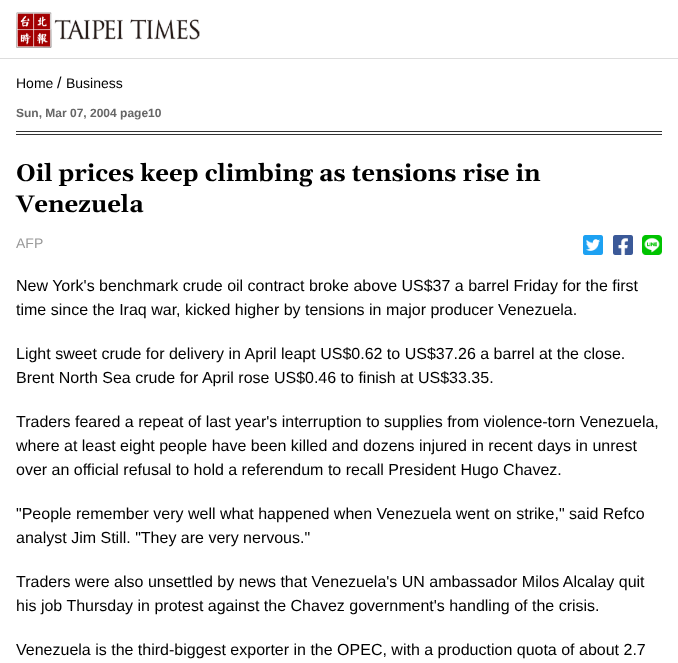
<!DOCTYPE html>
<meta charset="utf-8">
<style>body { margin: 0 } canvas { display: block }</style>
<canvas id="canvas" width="678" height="663"></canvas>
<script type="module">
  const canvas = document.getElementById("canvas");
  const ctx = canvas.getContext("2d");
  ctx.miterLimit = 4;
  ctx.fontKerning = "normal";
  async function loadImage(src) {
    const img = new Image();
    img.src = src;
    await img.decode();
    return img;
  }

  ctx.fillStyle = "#ffffff";
  ctx.fillRect(0, 0, 678, 663);
  ctx.fillStyle = "#dddddd";
  ctx.fillRect(0, 58, 678, 1);
  ctx.drawImage(await loadImage("img1.png"), 16, 12, 184, 36);
  ctx.font = "14px Liberation Sans";
  ctx.fillStyle = "#000000";
  ctx.fillText("Home", 16, 88);
  ctx.font = "16px Liberation Sans";
  ctx.fillText("/", 57, 88);
  ctx.font = "14px Liberation Sans";
  ctx.fillText("Business", 66, 88);
  ctx.fillStyle = "#333333";
  ctx.fillRect(16, 131, 646, 1);
  ctx.fillRect(16, 134, 646, 1);
  ctx.font = "bold 12px Liberation Sans";
  ctx.fillStyle = "#666666";
  ctx.fillText("Sun, Mar 07, 2004 page10", 16, 117);
  ctx.font = "bold 24px Gelasio";
  ctx.fillStyle = "#000000";
  ctx.fillText("Oil prices keep climbing as tensions rise in", 16, 181);
  ctx.fillText("Venezuela", 16, 212);
  ctx.font = "14px Liberation Sans";
  ctx.fillStyle = "#999999";
  ctx.fillText("AFP", 16, 248);
  ctx.drawImage(await loadImage("img2.png"), 583, 235, 20, 20);
  ctx.drawImage(await loadImage("img3.png"), 613, 235, 20, 20);
  ctx.drawImage(await loadImage("img4.png"), 642, 235, 20, 20);
  ctx.font = "16px Liberation Sans";
  ctx.fillStyle = "#000000";
  ctx.fillText("New York's benchmark crude oil contract broke above US$37 a barrel Friday for the first", 16, 291);
  ctx.fillText("time since the Iraq war, kicked higher by tensions in major producer Venezuela.", 16, 315);
  ctx.fillText("Light sweet crude for delivery in April leapt US$0.62 to US$37.26 a barrel at the close.", 16, 359);
  ctx.fillText("Brent North Sea crude for April rose US$0.46 to finish at US$33.35.", 16, 383);
  ctx.fillText("Traders feared a repeat of last year's interruption to supplies from violence-torn Venezuela,", 16, 427);
  ctx.fillText("where at least eight people have been killed and dozens injured in recent days in unrest", 16, 451);
  ctx.fillText("over an official refusal to hold a referendum to recall President Hugo Chavez.", 16, 475);
  ctx.fillText("\"People remember very well what happened when Venezuela went on strike,\" said Refco", 16, 519);
  ctx.fillText("analyst Jim Still. \"They are very nervous.\"", 16, 543);
  ctx.fillText("Traders were also unsettled by news that Venezuela's UN ambassador Milos Alcalay quit", 16, 587);
  ctx.fillText("his job Thursday in protest against the Chavez government's handling of the crisis.", 16, 611);
  ctx.fillText("Venezuela is the third-biggest exporter in the OPEC, with a production quota of about 2.7", 16, 655);
</script>
